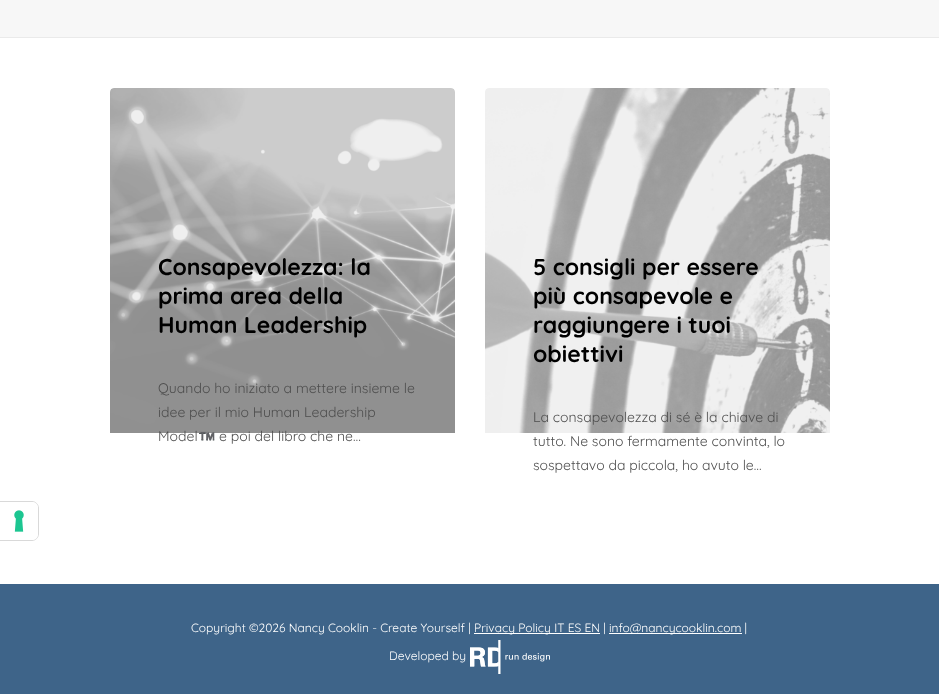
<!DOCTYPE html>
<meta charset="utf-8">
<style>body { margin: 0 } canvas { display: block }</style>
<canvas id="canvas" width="939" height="694"></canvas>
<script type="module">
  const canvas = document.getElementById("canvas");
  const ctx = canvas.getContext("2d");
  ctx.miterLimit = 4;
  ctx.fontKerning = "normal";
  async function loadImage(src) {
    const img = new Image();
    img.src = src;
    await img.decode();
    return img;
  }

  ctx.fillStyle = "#f7f7f7";
  ctx.fillRect(0, 0, 939, 694);
  ctx.fillStyle = "#ffffff";
  ctx.fillRect(0, 38, 939, 546);
  ctx.beginPath();
  ctx.moveTo(-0.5, 501.5);
  ctx.lineTo(32, 501.5);
  ctx.bezierCurveTo(35.5, 501.5, 38.5, 504.5, 38.5, 508);
  ctx.lineTo(38.5, 534);
  ctx.bezierCurveTo(38.5, 537.5, 35.5, 540.5, 32, 540.5);
  ctx.lineTo(-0.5, 540.5);
  ctx.closePath();
  ctx.strokeStyle = "#d9d9d9";
  ctx.stroke();
  ctx.beginPath();
  ctx.roundRect(0, 502, 38, 38, [0, 6, 6, 0]);
  ctx.fill();
  ctx.drawImage(await loadImage("img1.png"), 14, 510, 10, 22);
  ctx.fillStyle = "#eaeaea";
  ctx.fillRect(0, 37, 939, 1);
  ctx.drawImage(await loadImage("img2.png"), 110, 88, 345, 345);
  ctx.font = "bold 23px Quicksand";
  ctx.fillStyle = "#000000";
  ctx.fillText("Consapevolezza: la", 158, 275);
  ctx.fillText("prima area della", 158, 304);
  ctx.fillText("Human Leadership", 158, 333);
  ctx.font = "14px Quicksand";
  ctx.fillStyle = "#4e4e4e";
  ctx.fillText("Quando ho iniziato a mettere insieme le", 158, 393);
  ctx.fillText("idee per il mio Human Leadership", 158, 417);
  ctx.fillText("Model", 158, 441);
  ctx.font = "14px Noto Color Emoji";
  ctx.fillText("™️", 198, 441);
  ctx.font = "14px Quicksand";
  ctx.fillText("e poi del libro che ne…", 219, 441);
  ctx.drawImage(await loadImage("img3.png"), 485, 88, 345, 345);
  ctx.font = "bold 23px Quicksand";
  ctx.fillStyle = "#000000";
  ctx.fillText("5 consigli per essere", 533, 275);
  ctx.fillText("più consapevole e", 533, 304);
  ctx.fillText("raggiungere i tuoi", 533, 333);
  ctx.fillText("obiettivi", 533, 362);
  ctx.font = "14px Quicksand";
  ctx.fillStyle = "#4e4e4e";
  ctx.fillText("La consapevolezza di sé è la chiave di", 533, 422);
  ctx.fillText("tutto. Ne sono fermamente convinta, lo", 533, 446);
  ctx.fillText("sospettavo da piccola, ho avuto le…", 533, 470);
  ctx.fillStyle = "#3e6489";
  ctx.fillRect(0, 584, 939, 110);
  ctx.font = "12px Quicksand";
  ctx.fillStyle = "#ffffff";
  ctx.fillText("Copyright ©2026 Nancy Cooklin - Create Yourself |", 191, 632);
  ctx.fillRect(474, 633, 126, 1);
  ctx.fillText("Privacy Policy IT ES EN |", 474, 632);
  ctx.fillRect(609, 633, 133, 1);
  ctx.fillText("info@nancycooklin.com |", 609, 632);
  ctx.fillText("Developed by", 389, 660);
  ctx.drawImage(await loadImage("img4.png"), 470, 640, 80, 34);
</script>
